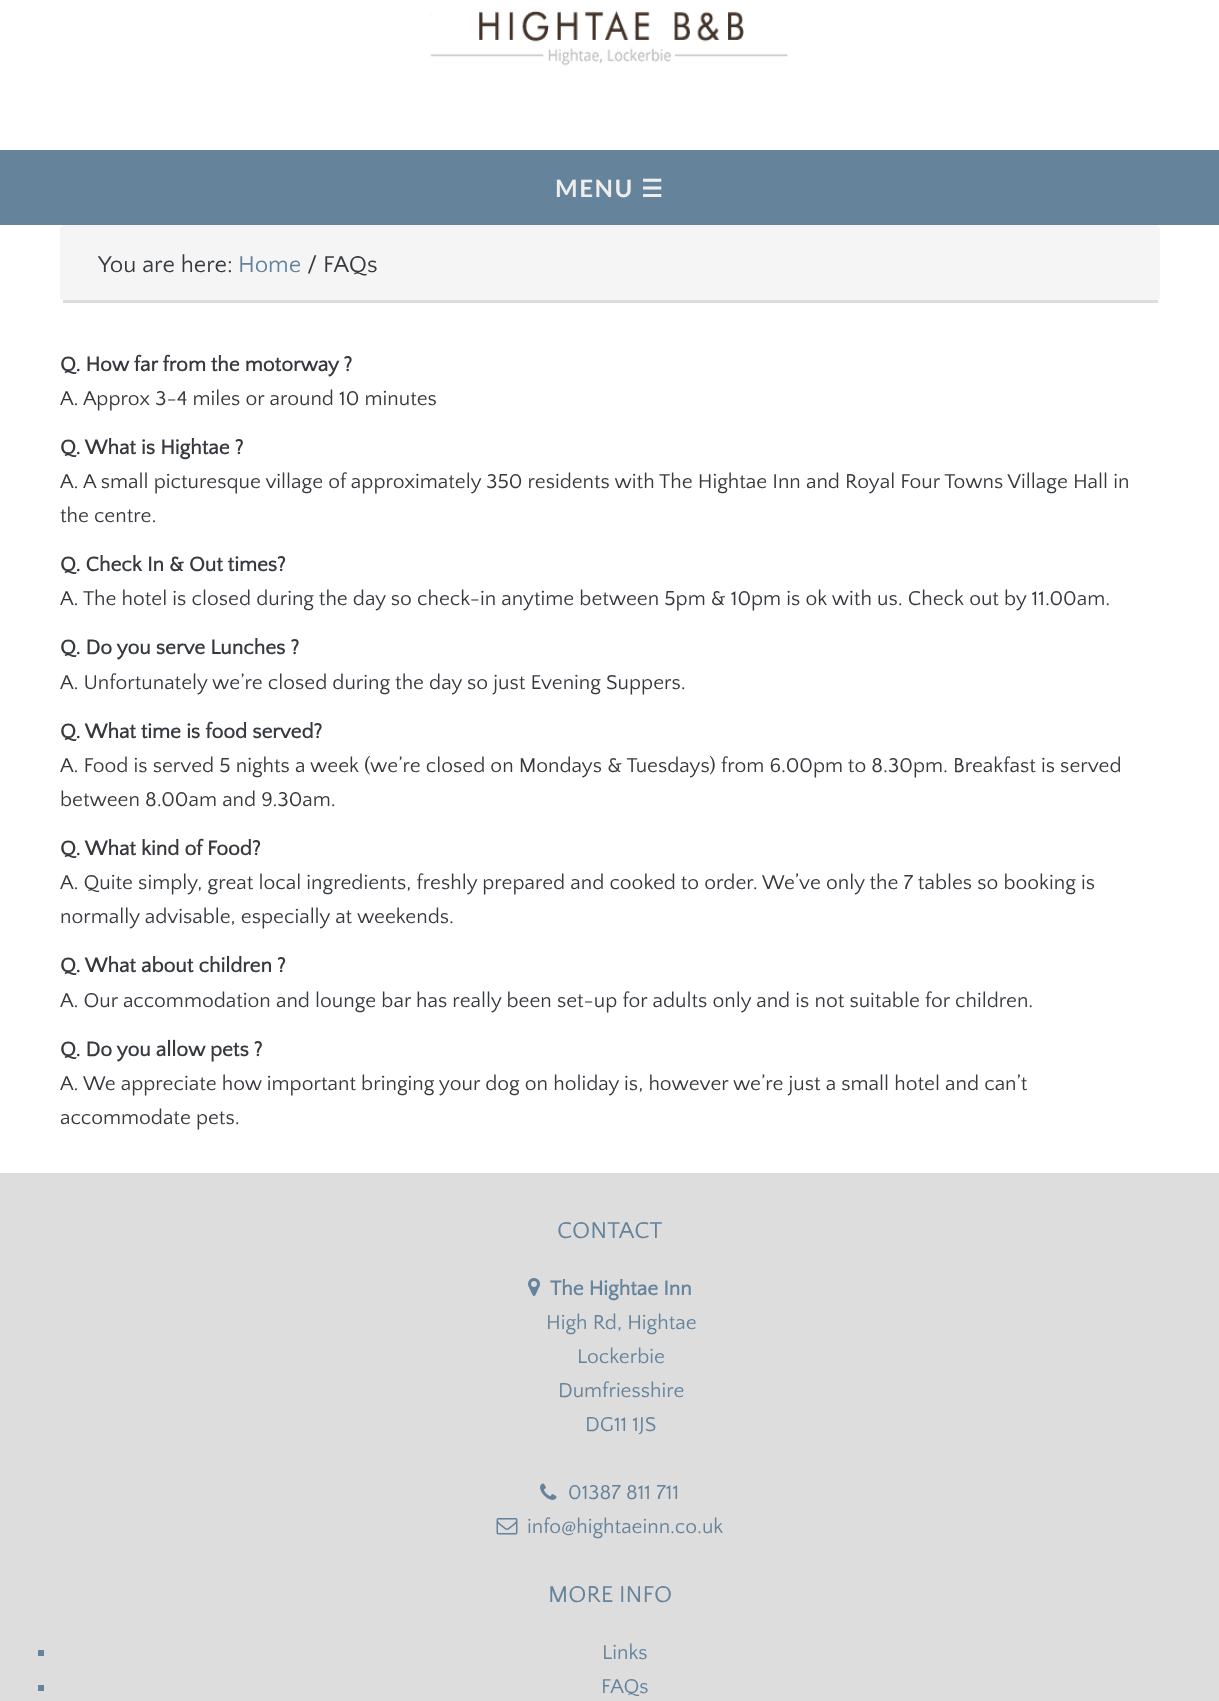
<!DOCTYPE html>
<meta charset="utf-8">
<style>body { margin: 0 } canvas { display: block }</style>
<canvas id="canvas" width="1219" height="1701"></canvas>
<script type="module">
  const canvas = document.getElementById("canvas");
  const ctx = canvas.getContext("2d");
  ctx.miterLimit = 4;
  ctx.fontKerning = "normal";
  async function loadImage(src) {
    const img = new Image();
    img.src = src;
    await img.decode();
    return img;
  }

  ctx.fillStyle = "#ffffff";
  ctx.fillRect(0, 0, 1219, 1701);
  ctx.drawImage(await loadImage("img1.png"), 430, 10, 358, 56);
  ctx.fillStyle = "#65839b";
  ctx.fillRect(0, 150, 1219, 75);
  ctx.letterSpacing = "1.5px";
  ctx.font = "bold 24px Lato";
  ctx.fillStyle = "#eeeeee";
  ctx.fillText("MENU", 555, 197);
  ctx.font = "bold 24px DejaVu Sans";
  ctx.fillText("☰", 641, 197);
  ctx.fillStyle = "#f5f5f5";
  ctx.beginPath();
  ctx.moveTo(64, 225);
  ctx.lineTo(1155, 225);
  ctx.bezierCurveTo(1157, 225, 1160, 227, 1160, 230);
  ctx.lineTo(1160, 298);
  ctx.bezierCurveTo(1160, 299, 1157, 300, 1155, 300);
  ctx.lineTo(64, 300);
  ctx.bezierCurveTo(62, 300, 60, 299, 60, 298);
  ctx.lineTo(60, 230);
  ctx.bezierCurveTo(60, 227, 62, 225, 64, 225);
  ctx.closePath();
  ctx.fill();
  ctx.fillStyle = "#dddddd";
  ctx.fillRect(63, 300, 1095, 3);
  ctx.letterSpacing = "0px";
  ctx.font = "24px Quattrocento Sans";
  ctx.fillStyle = "#36393e";
  ctx.fillText("You are here:", 98, 272);
  ctx.fillStyle = "#65839b";
  ctx.fillText("Home", 238, 272);
  ctx.fillStyle = "#36393e";
  ctx.fillText("/ FAQs", 307, 272);
  ctx.font = "bold 21px Quattrocento Sans";
  ctx.fillText("Q. How far from the motorway ?", 60, 371);
  ctx.font = "21px Quattrocento Sans";
  ctx.fillText("A. Approx 3-4 miles or around 10 minutes", 60, 405);
  ctx.font = "bold 21px Quattrocento Sans";
  ctx.fillText("Q. What is Hightae ?", 60, 454);
  ctx.font = "21px Quattrocento Sans";
  ctx.fillText("A. A small picturesque village of approximately 350 residents with The Hightae Inn and Royal Four Towns Village Hall in", 60, 488);
  ctx.fillText("the centre.", 60, 522);
  ctx.font = "bold 21px Quattrocento Sans";
  ctx.fillText("Q. Check In & Out times?", 60, 571);
  ctx.font = "21px Quattrocento Sans";
  ctx.fillText("A. The hotel is closed during the day so check-in anytime between 5pm & 10pm is ok with us. Check out by 11.00am.", 60, 605);
  ctx.font = "bold 21px Quattrocento Sans";
  ctx.fillText("Q. Do you serve Lunches ?", 60, 654);
  ctx.font = "21px Quattrocento Sans";
  ctx.fillText("A. Unfortunately we’re closed during the day so just Evening Suppers.", 60, 689);
  ctx.font = "bold 21px Quattrocento Sans";
  ctx.fillText("Q. What time is food served?", 60, 738);
  ctx.font = "21px Quattrocento Sans";
  ctx.fillText("A. Food is served 5 nights a week (we’re closed on Mondays & Tuesdays) from 6.00pm to 8.30pm. Breakfast is served", 60, 772);
  ctx.fillText("between 8.00am and 9.30am.", 60, 806);
  ctx.font = "bold 21px Quattrocento Sans";
  ctx.fillText("Q. What kind of Food?", 60, 855);
  ctx.font = "21px Quattrocento Sans";
  ctx.fillText("A. Quite simply, great local ingredients, freshly prepared and cooked to order. We’ve only the 7 tables so booking is", 60, 889);
  ctx.fillText("normally advisable, especially at weekends.", 60, 923);
  ctx.font = "bold 21px Quattrocento Sans";
  ctx.fillText("Q. What about children ?", 60, 972);
  ctx.font = "21px Quattrocento Sans";
  ctx.fillText("A. Our accommodation and lounge bar has really been set-up for adults only and is not suitable for children.", 60, 1007);
  ctx.font = "bold 21px Quattrocento Sans";
  ctx.fillText("Q. Do you allow pets ?", 60, 1056);
  ctx.font = "21px Quattrocento Sans";
  ctx.fillText("A. We appreciate how important bringing your dog on holiday is, however we’re just a small hotel and can’t", 60, 1090);
  ctx.fillText("accommodate pets.", 60, 1124);
  ctx.fillStyle = "#dddddd";
  ctx.fillRect(0, 1173, 1219, 528);
  ctx.font = "24px Quattrocento Sans";
  ctx.fillStyle = "#65839b";
  ctx.fillText("CONTACT", 557, 1238);
  ctx.drawImage(await loadImage("img2.png"), 528, 1278, 12, 18);
  ctx.font = "bold 21px Quattrocento Sans";
  ctx.fillText("The Hightae Inn", 550, 1295);
  ctx.font = "21px Quattrocento Sans";
  ctx.fillText("High Rd, Hightae", 546, 1329);
  ctx.fillText("Lockerbie", 577, 1363);
  ctx.fillText("Dumfriesshire", 558, 1397);
  ctx.fillText("DG11 1JS", 585, 1431);
  ctx.drawImage(await loadImage("img3.png"), 540, 1483, 17, 17);
  ctx.fillText("01387 811 711", 568, 1499);
  ctx.drawImage(await loadImage("img4.png"), 496, 1518, 22, 17);
  ctx.fillText("info@hightaeinn.co.uk", 527, 1533);
  ctx.font = "24px Quattrocento Sans";
  ctx.fillText("MORE INFO", 548, 1602);
  ctx.fillRect(38, 1650, 6, 6);
  ctx.font = "21px Quattrocento Sans";
  ctx.fillText("Links", 602, 1659);
  ctx.fillRect(38, 1685, 6, 6);
  ctx.fillText("FAQs", 601, 1693);
</script>
